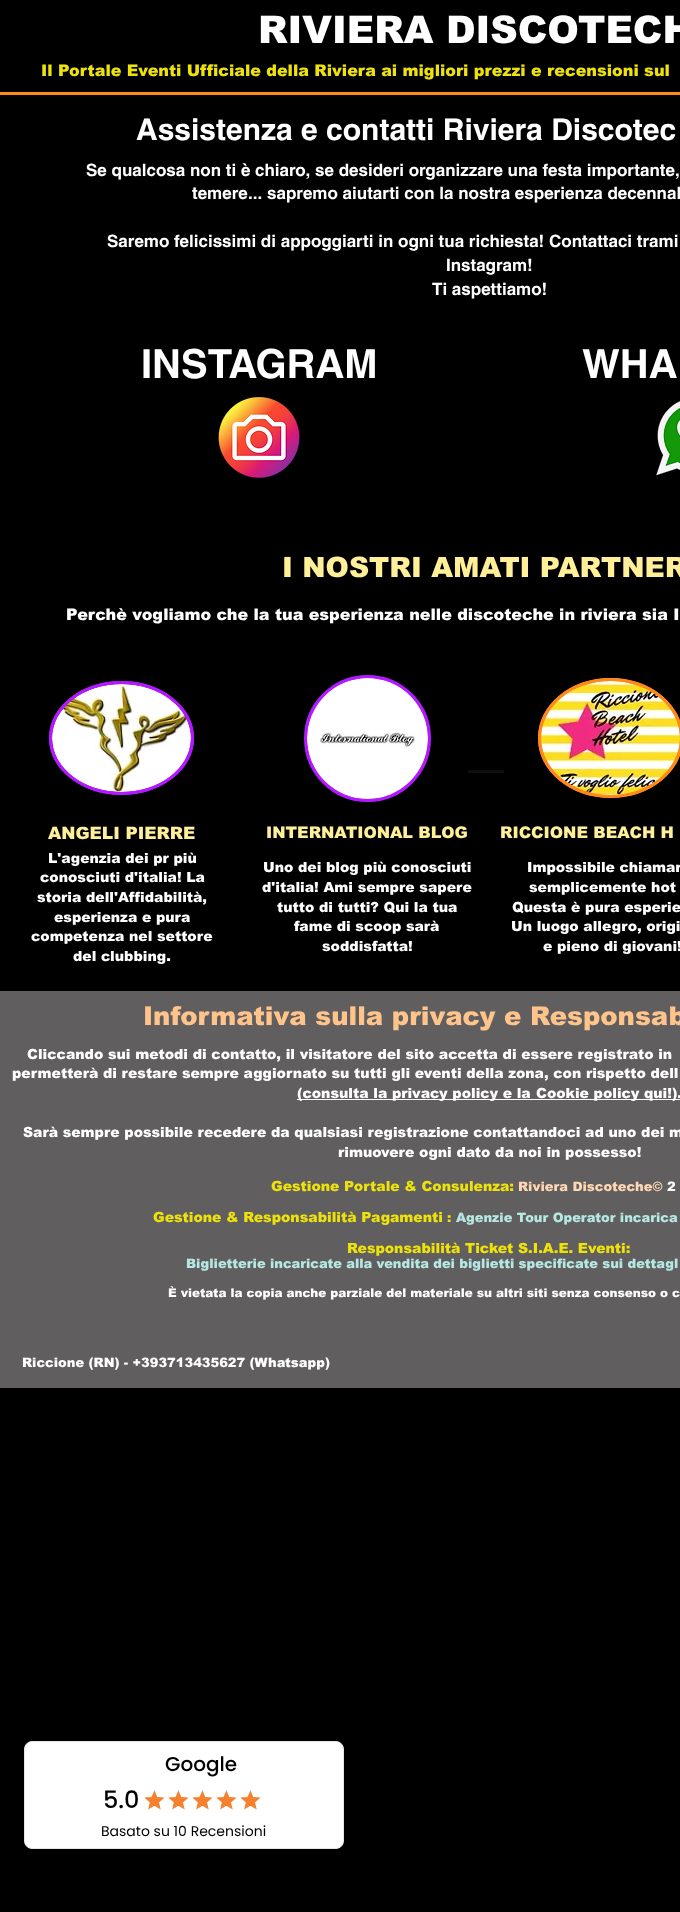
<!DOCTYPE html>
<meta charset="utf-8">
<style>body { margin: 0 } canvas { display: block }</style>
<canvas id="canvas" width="680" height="1912"></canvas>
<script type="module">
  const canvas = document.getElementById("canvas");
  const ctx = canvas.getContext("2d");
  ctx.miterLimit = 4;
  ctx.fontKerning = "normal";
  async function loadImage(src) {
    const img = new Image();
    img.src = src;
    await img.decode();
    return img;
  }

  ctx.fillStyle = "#000000";
  ctx.fillRect(0, 0, 680, 1912);
  ctx.font = "900 38px arial";
  ctx.fillStyle = "#ffffff";
  ctx.fillText("RIVIERA DISCOTECH", 258, 43);
  ctx.font = "900 16px arial";
  ctx.fillStyle = "#ede20c";
  ctx.fillText("Il Portale Eventi Ufficiale della Riviera ai migliori prezzi e recensioni sul", 41, 76);
  ctx.fillStyle = "#ff8819";
  ctx.fillRect(0, 92, 680, 3);
  ctx.font = "bold 30px helvetica";
  ctx.fillStyle = "#ffffff";
  ctx.fillText("Assistenza e contatti Riviera Discotec", 136, 140);
  ctx.font = "bold 17px helvetica";
  ctx.fillText("Se qualcosa non ti è chiaro, se desideri organizzare una festa importante,", 86, 176);
  ctx.fillText("temere... sapremo aiutarti con la nostra esperienza decennal", 192, 199);
  ctx.fillText("Saremo felicissimi di appoggiarti in ogni tua richiesta! Contattaci trami", 107, 247);
  ctx.fillText("Instagram!", 446, 271);
  ctx.fillText("Ti aspettiamo!", 432, 295);
  ctx.font = "bold 40px helvetica";
  ctx.fillText("INSTAGRAM", 141, 378);
  ctx.fillText("WHA", 582, 378);
  ctx.drawImage(await loadImage("img1.png"), 218, 396, 82, 82);
  ctx.drawImage(await loadImage("img2.png"), 656, 401, 24, 75);
  ctx.font = "900 28px arial";
  ctx.fillStyle = "#ffef98";
  ctx.fillText("I NOSTRI AMATI PARTNER", 282, 577);
  ctx.font = "900 16px arial";
  ctx.fillStyle = "#ffffff";
  ctx.fillText("Perchè vogliamo che la tua esperienza nelle discoteche in riviera sia I", 66, 620);
  ctx.fillStyle = "#0f0f0f";
  ctx.fillRect(468, 770, 36, 3);
  ctx.fillStyle = "#b319ff";
  ctx.beginPath();
  ctx.ellipse(121.5, 738, 72.5, 57, 0, 0, Math.PI * 2);
  ctx.fill();
  ctx.beginPath();
  ctx.moveTo(121.5, 682.5);
  ctx.bezierCurveTo(160.5, 682.5, 192.5, 707.5, 192.5, 738);
  ctx.bezierCurveTo(192.5, 768.5, 160.5, 793.5, 121.5, 793.5);
  ctx.bezierCurveTo(82.5, 793.5, 50.5, 768.5, 50.5, 738);
  ctx.bezierCurveTo(50.5, 707.5, 82.5, 682.5, 121.5, 682.5);
  ctx.closePath();
  ctx.strokeStyle = "#b319ff";
  ctx.lineWidth = 3;
  ctx.stroke();
  ctx.drawImage(await loadImage("img3.png"), 52, 684, 139, 108);
  ctx.font = "900 17px arial";
  ctx.fillStyle = "#ffef98";
  ctx.fillText("ANGELI PIERRE", 48, 839);
  ctx.font = "900 14px arial";
  ctx.fillStyle = "#ffffff";
  ctx.fillText("L'agenzia dei pr più", 48, 863);
  ctx.fillText("conosciuti d'italia! La", 40, 882);
  ctx.fillText("storia dell'Affidabilità,", 37, 902);
  ctx.fillText("esperienza e pura", 54, 922);
  ctx.fillText("competenza nel settore", 31, 941);
  ctx.fillText("del clubbing.", 73, 961);
  ctx.fillStyle = "#b319ff";
  ctx.beginPath();
  ctx.arc(367.5, 738.5, 62, 0, Math.PI * 2);
  ctx.fill();
  ctx.stroke();
  ctx.drawImage(await loadImage("img4.png"), 307, 678, 121, 121);
  ctx.font = "900 16px arial";
  ctx.fillStyle = "#ffef98";
  ctx.fillText("INTERNATIONAL BLOG", 266, 838);
  ctx.font = "900 14px arial";
  ctx.fillStyle = "#ffffff";
  ctx.fillText("Uno dei blog più conosciuti", 263, 872);
  ctx.fillText("d'italia! Ami sempre sapere", 262, 892);
  ctx.fillText("tutto di tutti? Qui la tua", 277, 912);
  ctx.fillText("fame di scoop sarà", 294, 931);
  ctx.fillText("soddisfatta!", 322, 951);
  ctx.fillStyle = "#ff8819";
  ctx.beginPath();
  ctx.ellipse(610.5, 738, 72.5, 60, 0, 0, Math.PI * 2);
  ctx.fill();
  ctx.beginPath();
  ctx.moveTo(610.5, 679.5);
  ctx.bezierCurveTo(649.5, 679.5, 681.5, 705.5, 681.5, 738);
  ctx.bezierCurveTo(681.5, 770.5, 649.5, 796.5, 610.5, 796.5);
  ctx.bezierCurveTo(571.5, 796.5, 539.5, 770.5, 539.5, 738);
  ctx.bezierCurveTo(539.5, 705.5, 571.5, 679.5, 610.5, 679.5);
  ctx.closePath();
  ctx.strokeStyle = "#ff8819";
  ctx.stroke();
  ctx.drawImage(await loadImage("img5.png"), 541, 681, 139, 114);
  ctx.font = "900 16px arial";
  ctx.fillStyle = "#ffef98";
  ctx.fillText("RICCIONE BEACH H", 500, 838);
  ctx.font = "900 14px arial";
  ctx.fillStyle = "#ffffff";
  ctx.fillText("Impossibile chiamar", 527, 872);
  ctx.fillText("semplicemente hot", 529, 892);
  ctx.fillText("Questa è pura esperie", 512, 912);
  ctx.fillText("Un luogo allegro, origi", 511, 931);
  ctx.fillText("e pieno di giovani!", 543, 951);
  ctx.fillStyle = "#605e5e";
  ctx.fillRect(0, 991, 680, 397);
  ctx.font = "900 26px arial";
  ctx.fillStyle = "#ffc48c";
  ctx.fillText("Informativa sulla privacy e Responsab", 143, 1025);
  ctx.font = "900 14px arial";
  ctx.fillStyle = "#ffffff";
  ctx.fillText("Cliccando sui metodi di contatto, il visitatore del sito accetta di essere registrato in", 27, 1059);
  ctx.fillText("permetterà di restare sempre aggiornato su tutti gli eventi della zona, con rispetto dell", 12, 1078);
  ctx.fillRect(297, 1099, 201, 1);
  ctx.fillText("(consulta la privacy policy e la", 297, 1098);
  ctx.fillRect(498, 1099, 182, 1);
  ctx.fillText("Cookie policy qui!).", 536, 1098);
  ctx.fillText("Sarà sempre possibile recedere da qualsiasi registrazione contattandoci ad uno dei m", 23, 1137);
  ctx.fillText("rimuovere ogni dato da noi in possesso!", 338, 1157);
  ctx.fillStyle = "#ede20c";
  ctx.fillText("Gestione Portale & Consulenza:", 271, 1191);
  ctx.font = "900 13px arial";
  ctx.fillStyle = "#ffd7b3";
  ctx.fillText("Riviera Discoteche©", 518, 1191);
  ctx.fillStyle = "#ffffff";
  ctx.fillText("2", 667, 1191);
  ctx.font = "900 14px arial";
  ctx.fillStyle = "#ede20c";
  ctx.fillText("Gestione & Responsabilità Pagamenti", 153, 1222);
  ctx.font = "900 13px arial";
  ctx.fillText(":", 447, 1222);
  ctx.fillStyle = "#b6e8e3";
  ctx.fillText("Agenzie Tour Operator incarica", 456, 1222);
  ctx.font = "900 14px arial";
  ctx.fillStyle = "#ede20c";
  ctx.fillText("Responsabilità Ticket S.I.A.E. Eventi:", 347, 1253);
  ctx.font = "900 13px arial";
  ctx.fillStyle = "#b6e8e3";
  ctx.fillText("Biglietterie incaricate alla vendita dei biglietti specificate sui dettagl", 186, 1268);
  ctx.font = "900 12px arial";
  ctx.fillStyle = "#ffffff";
  ctx.fillText("È vietata la copia anche parziale del materiale su altri siti senza consenso o c", 168, 1297);
  ctx.font = "900 13px arial";
  ctx.fillText("Riccione (RN) - +393713435627 (Whatsapp)", 22, 1367);
  ctx.beginPath();
  ctx.roundRect(24.5, 1741.5, 319, 107, 7.5);
  ctx.fill();
  ctx.strokeStyle = "#e5e5e5";
  ctx.lineWidth = 1;
  ctx.stroke();
  ctx.font = "500 20px Poppins";
  ctx.fillStyle = "#000000";
  ctx.fillText("Google", 165, 1771);
  ctx.font = "500 24px Poppins";
  ctx.fillText("5.0", 103, 1808);
  ctx.drawImage(await loadImage("img6.png"), 144, 1790, 20, 20);
  ctx.drawImage(await loadImage("img7.png"), 144, 1790, 21, 20);
  ctx.drawImage(await loadImage("img6.png"), 168, 1790, 20, 20);
  ctx.drawImage(await loadImage("img7.png"), 168, 1790, 21, 20);
  ctx.drawImage(await loadImage("img6.png"), 192, 1790, 20, 20);
  ctx.drawImage(await loadImage("img7.png"), 192, 1790, 21, 20);
  ctx.drawImage(await loadImage("img6.png"), 216, 1790, 20, 20);
  ctx.drawImage(await loadImage("img7.png"), 216, 1790, 21, 20);
  ctx.drawImage(await loadImage("img6.png"), 240, 1790, 20, 20);
  ctx.drawImage(await loadImage("img7.png"), 240, 1790, 21, 20);
  ctx.font = "14px Poppins";
  ctx.fillText("Basato su 10 Recensioni", 101, 1836);
</script>
